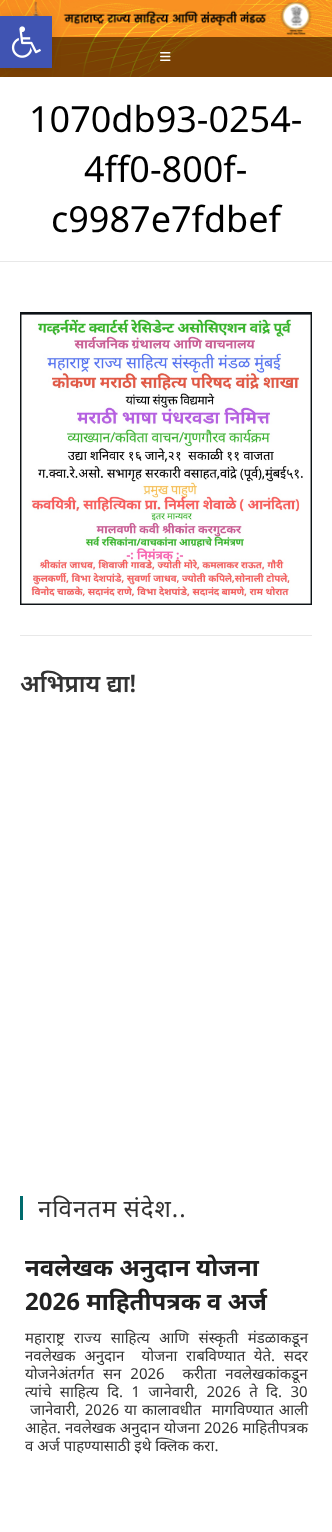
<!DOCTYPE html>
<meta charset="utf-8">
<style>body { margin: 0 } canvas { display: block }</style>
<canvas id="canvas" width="332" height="1532"></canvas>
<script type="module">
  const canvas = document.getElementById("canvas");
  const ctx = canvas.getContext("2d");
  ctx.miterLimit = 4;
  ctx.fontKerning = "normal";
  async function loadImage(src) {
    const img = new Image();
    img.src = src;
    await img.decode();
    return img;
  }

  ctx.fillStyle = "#ffffff";
  ctx.fillRect(0, 0, 332, 1532);
  ctx.drawImage(await loadImage("img2.png"), 0, 0, 332, 77);
  ctx.fillStyle = "rgba(255, 255, 255, 0.1)";
  ctx.fillRect(0, 0, 332, 37);
  ctx.drawImage(await loadImage("img3.png"), 31, 1, 281, 34);
  ctx.fillStyle = "rgba(0, 0, 0, 0.51)";
  ctx.fillRect(0, 37, 332, 40);
  ctx.fillStyle = "rgba(0, 0, 0, 0.1)";
  ctx.filter = "blur(5px)";
  ctx.beginPath();
  ctx.rect(0, 16, 52, 52);
  ctx.fill();
  ctx.filter = "none";
  ctx.fillStyle = "#4054b2";
  ctx.fillRect(0, 16, 52, 52);
  ctx.drawImage(await loadImage("img1.png"), 11, 26, 30, 32);
  ctx.drawImage(await loadImage("img4.png"), 160, 52, 11, 9);
  ctx.fillStyle = "#e8e8e8";
  ctx.fillRect(0, 261, 332, 1);
  ctx.font = "36px Noto Sans";
  ctx.fillStyle = "#000000";
  ctx.fillText("1070db93-0254-", 29, 132);
  ctx.fillText("4ff0-800f-", 84, 182);
  ctx.fillText("c9987e7fdbef", 51, 232);
  ctx.drawImage(await loadImage("img5.png"), 20, 312, 292, 293);
  ctx.fillStyle = "#e8e8e8";
  ctx.fillRect(20, 635, 292, 1);
  ctx.font = "600 24px Noto Sans";
  ctx.fillStyle = "#333333";
  ctx.fillText("अभिप्राय द्या!", 20, 692);
  ctx.fillStyle = "#006b6d";
  ctx.fillRect(20, 1196, 3, 24);
  ctx.letterSpacing = "1px";
  ctx.wordSpacing = "-1px";
  ctx.font = "24px Noto Sans";
  ctx.fillStyle = "#333333";
  ctx.fillText("नविनतम संदेश..", 38, 1217);
  ctx.letterSpacing = "0px";
  ctx.wordSpacing = "0px";
  ctx.font = "bold 24px Noto Sans";
  ctx.fillStyle = "#222222";
  ctx.fillText("नवलेखक अनुदान योजना", 25, 1276);
  ctx.fillText("2026 माहितीपत्रक व अर्ज", 25, 1310);
  ctx.wordSpacing = "5.5px";
  ctx.font = "15px Noto Sans";
  ctx.fillStyle = "#333333";
  ctx.fillText("महाराष्ट्र राज्य साहित्य आणि संस्कृती मंडळाकडून", 25, 1343);
  ctx.wordSpacing = "4.75px";
  ctx.fillText("नवलेखक अनुदान  योजना राबविण्यात येते. सदर", 25, 1361);
  ctx.wordSpacing = "5px";
  ctx.fillText("योजनेअंतर्गत सन 2026  करीता नवलेखकांकडून", 25, 1379);
  ctx.wordSpacing = "4.5px";
  ctx.fillText("त्यांचे साहित्य दि. 1 जानेवारी, 2026 ते दि. 30", 25, 1397);
  ctx.wordSpacing = "1.25px";
  ctx.fillText("जानेवारी, 2026 या कालावधीत  मागविण्यात आली", 30, 1415);
  ctx.wordSpacing = "0.25px";
  ctx.fillText("आहेत. नवलेखक अनुदान योजना 2026 माहितीपत्रक", 25, 1433);
  ctx.wordSpacing = "0px";
  ctx.fillText("व अर्ज पाहण्यासाठी इथे क्लिक करा.", 25, 1451);
</script>
